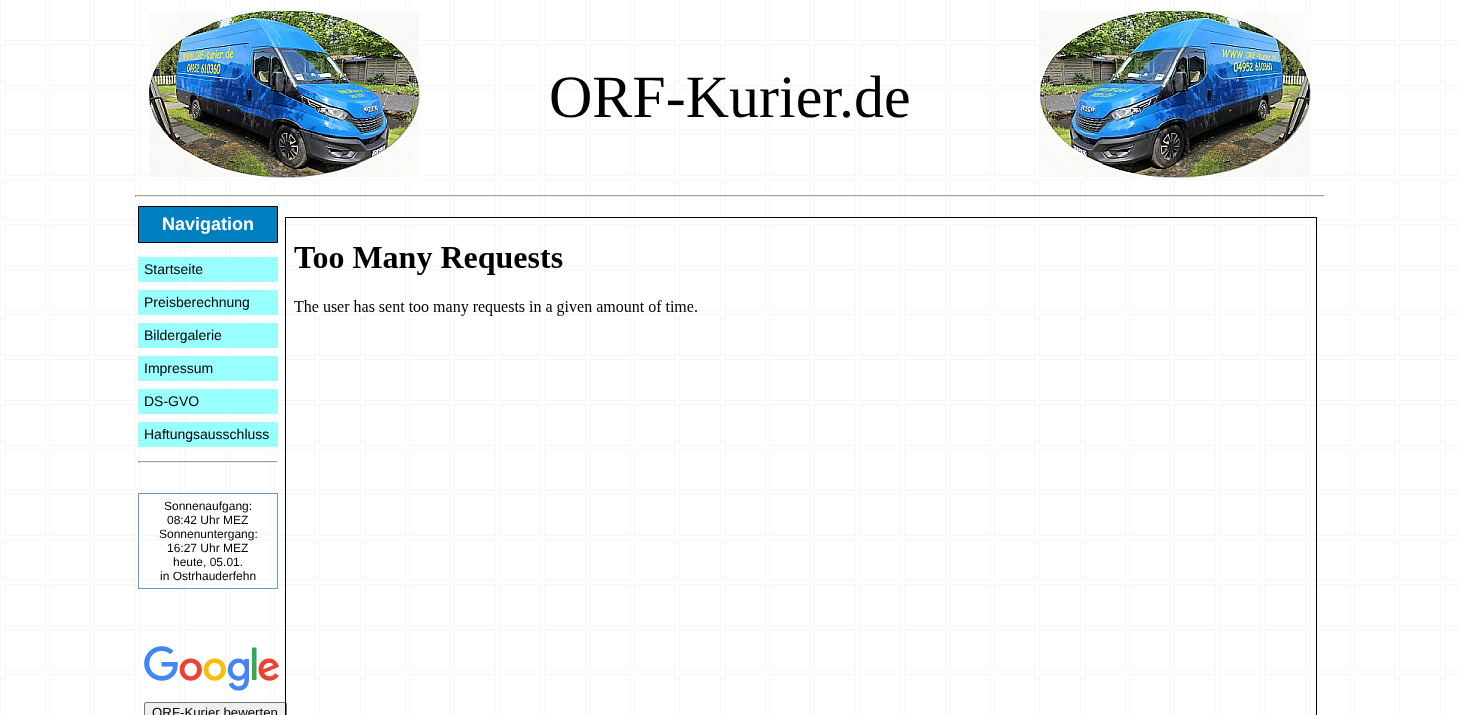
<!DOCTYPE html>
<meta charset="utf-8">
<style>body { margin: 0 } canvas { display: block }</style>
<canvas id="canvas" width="1460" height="715"></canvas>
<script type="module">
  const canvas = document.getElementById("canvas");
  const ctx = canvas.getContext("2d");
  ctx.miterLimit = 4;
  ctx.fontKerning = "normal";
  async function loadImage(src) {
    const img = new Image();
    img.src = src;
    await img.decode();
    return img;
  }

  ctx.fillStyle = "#ffffff";
  ctx.fillRect(0, 0, 1460, 715);
  ctx.drawImage(await loadImage("img1.png"), 0, 0, 1460, 715);
  ctx.drawImage(await loadImage("img2.png"), 149, 11, 271, 167);
  ctx.font = "60px Liberation Serif";
  ctx.fillStyle = "#000000";
  ctx.fillText("ORF-Kurier.de", 549, 117);
  ctx.drawImage(await loadImage("img3.png"), 1040, 11, 271, 167);
  ctx.fillStyle = "#9f9f9f";
  ctx.fillRect(135, 195, 1190, 1);
  ctx.fillStyle = "#eeeeee";
  ctx.fillRect(1324, 195, 1, 2);
  ctx.fillRect(135, 196, 1190, 1);
  ctx.fillStyle = "#9f9f9f";
  ctx.fillRect(135, 195, 1, 2);
  ctx.fillStyle = "#0080c0";
  ctx.beginPath();
  ctx.rect(138.5, 206.5, 139, 36);
  ctx.fill();
  ctx.strokeStyle = "#000000";
  ctx.stroke();
  ctx.font = "bold 18px Liberation Sans";
  ctx.fillStyle = "#ffffff";
  ctx.fillText("Navigation", 162, 230);
  ctx.fillStyle = "#99ffff";
  ctx.fillRect(138, 257, 140, 25);
  ctx.font = "14px Liberation Sans";
  ctx.fillStyle = "#000000";
  ctx.fillText("Startseite", 144, 274);
  ctx.fillStyle = "#99ffff";
  ctx.fillRect(138, 290, 140, 25);
  ctx.fillStyle = "#000000";
  ctx.fillText("Preisberechnung", 144, 307);
  ctx.fillStyle = "#99ffff";
  ctx.fillRect(138, 323, 140, 25);
  ctx.fillStyle = "#000000";
  ctx.fillText("Bildergalerie", 144, 340);
  ctx.fillStyle = "#99ffff";
  ctx.fillRect(138, 356, 140, 25);
  ctx.fillStyle = "#000000";
  ctx.fillText("Impressum", 144, 373);
  ctx.fillStyle = "#99ffff";
  ctx.fillRect(138, 389, 140, 25);
  ctx.fillStyle = "#000000";
  ctx.fillText("DS-GVO", 144, 406);
  ctx.fillStyle = "#99ffff";
  ctx.fillRect(138, 422, 140, 25);
  ctx.fillStyle = "#000000";
  ctx.fillText("Haftungsausschluss", 144, 439);
  ctx.fillStyle = "#9f9f9f";
  ctx.fillRect(138, 461, 140, 1);
  ctx.fillStyle = "#eeeeee";
  ctx.fillRect(277, 461, 1, 2);
  ctx.fillRect(138, 462, 140, 1);
  ctx.fillStyle = "#9f9f9f";
  ctx.fillRect(138, 461, 1, 2);
  ctx.strokeStyle = "#6699cc";
  ctx.strokeRect(138.5, 493.5, 139, 95);
  ctx.font = "12px Liberation Sans";
  ctx.fillStyle = "#000000";
  ctx.fillText("Sonnenaufgang:", 164, 510);
  ctx.fillText("08:42 Uhr MEZ", 167, 524);
  ctx.fillText("Sonnenuntergang:", 159, 538);
  ctx.fillText("16:27 Uhr MEZ", 167, 552);
  ctx.fillText("heute, 05.01.", 173, 566);
  ctx.fillText("in Ostrhauderfehn", 160, 580);
  ctx.drawImage(await loadImage("img4.png"), 144, 646, 135, 45);
  ctx.fillStyle = "#efefef";
  ctx.beginPath();
  ctx.roundRect(144.5, 702.5, 142, 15, 1.5);
  ctx.fill();
  ctx.strokeStyle = "#767676";
  ctx.stroke();
  ctx.font = "13.25px Liberation Sans";
  ctx.fillStyle = "#000000";
  ctx.fillText("ORF-Kurier bewerten", 152, 717);
  ctx.strokeStyle = "#000000";
  ctx.strokeRect(285.5, 217.5, 1031, 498);
  ctx.drawImage(await loadImage("img5.png"), 294, 247, 403, 69);
</script>
